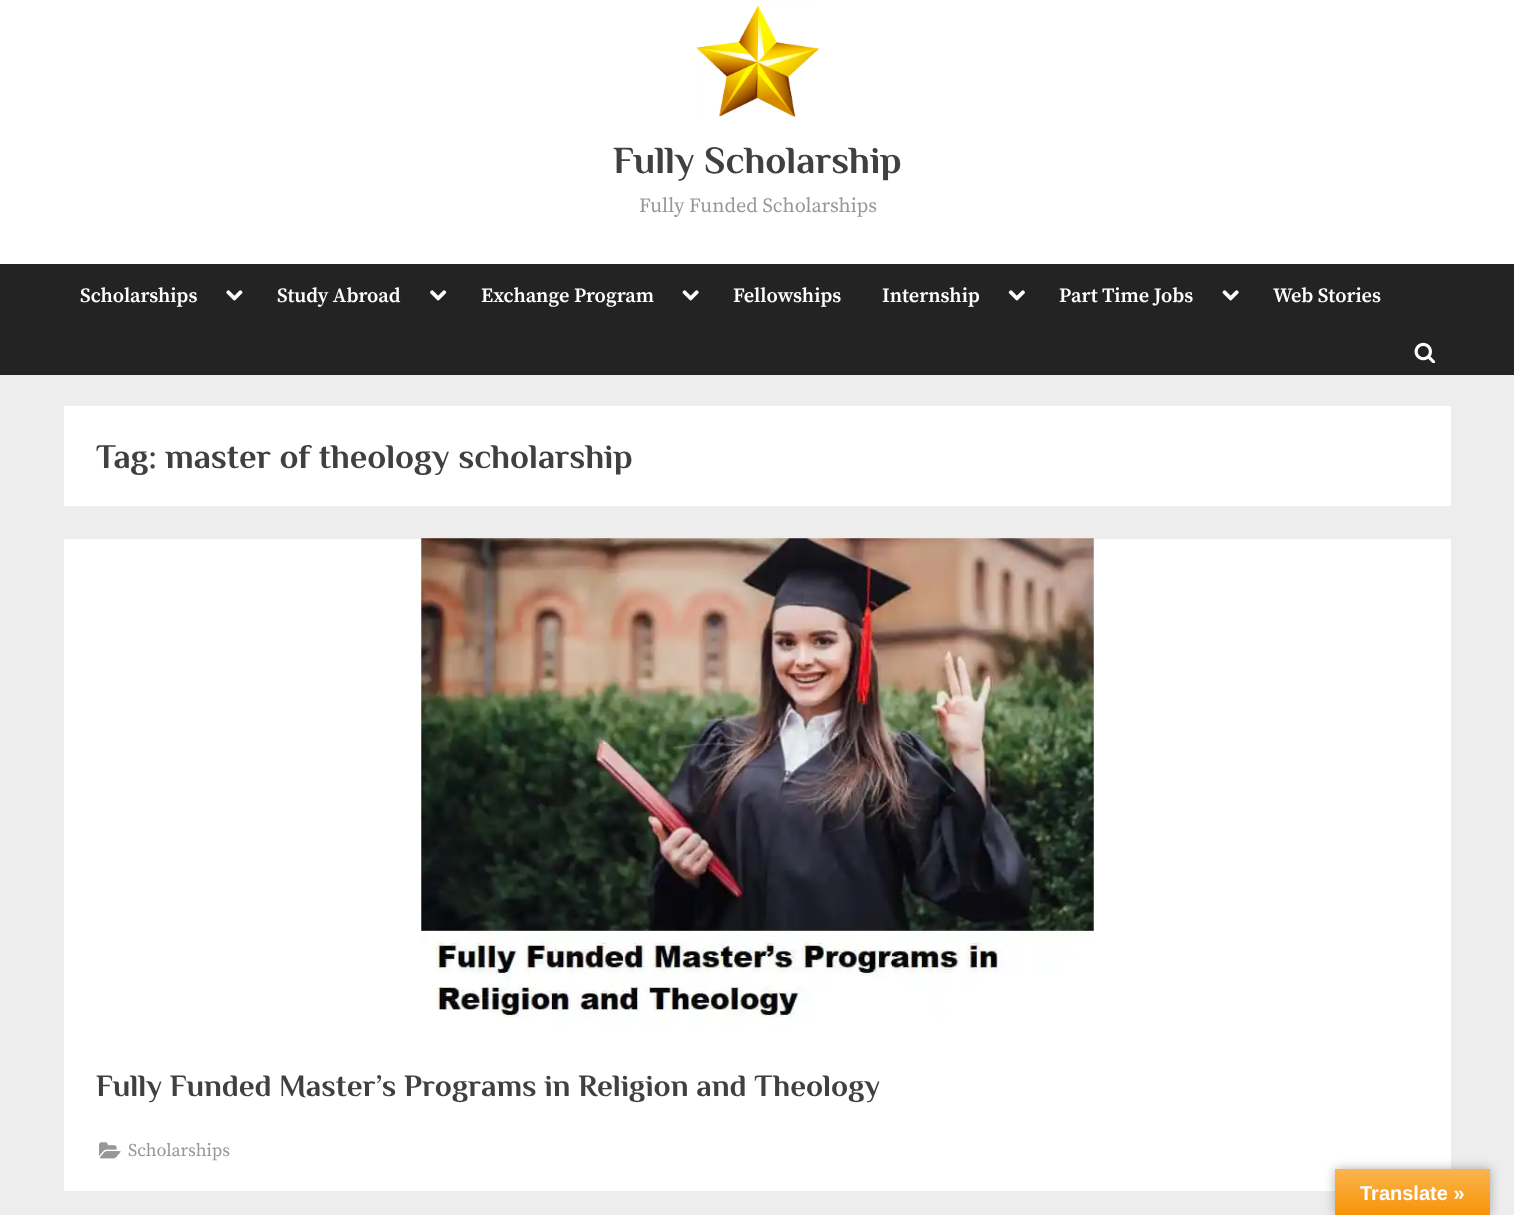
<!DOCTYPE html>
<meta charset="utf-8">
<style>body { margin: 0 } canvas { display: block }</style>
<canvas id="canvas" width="1514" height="1215"></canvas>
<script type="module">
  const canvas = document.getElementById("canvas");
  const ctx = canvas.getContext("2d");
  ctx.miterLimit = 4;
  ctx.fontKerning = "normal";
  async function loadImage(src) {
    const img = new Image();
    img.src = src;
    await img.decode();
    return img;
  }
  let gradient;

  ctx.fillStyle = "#ededed";
  ctx.fillRect(0, 0, 1514, 1215);
  ctx.fillStyle = "#ffffff";
  ctx.fillRect(0, 0, 1514, 264);
  ctx.drawImage(await loadImage("img1.png"), 696, 5, 123, 112);
  ctx.font = "bold 38.25px Philosopher";
  ctx.fillStyle = "#404040";
  ctx.fillText("Fully Scholarship", 613, 173);
  ctx.font = "20.25px Source Serif Pro";
  ctx.fillStyle = "#979797";
  ctx.fillText("Fully Funded Scholarships", 639, 212);
  ctx.fillStyle = "#232323";
  ctx.fillRect(0, 264, 1514, 111);
  ctx.font = "600 20.25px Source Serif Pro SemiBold";
  ctx.fillStyle = "#ffffff";
  ctx.fillText("Scholarships", 80, 302);
  ctx.drawImage(await loadImage("img2.png"), 226, 290, 17, 11);
  ctx.fillText("Study Abroad", 277, 302);
  ctx.drawImage(await loadImage("img3.png"), 430, 290, 17, 11);
  ctx.fillText("Exchange Program", 481, 302);
  ctx.drawImage(await loadImage("img4.png"), 682, 290, 17, 11);
  ctx.fillText("Fellowships", 733, 302);
  ctx.fillText("Internship", 882, 302);
  ctx.drawImage(await loadImage("img5.png"), 1008, 290, 17, 11);
  ctx.fillText("Part Time Jobs", 1059, 302);
  ctx.drawImage(await loadImage("img4.png"), 1222, 290, 17, 11);
  ctx.fillText("Web Stories", 1273, 302);
  ctx.drawImage(await loadImage("img6.png"), 1414, 342, 22, 21);
  ctx.fillRect(64, 406, 1387, 100);
  ctx.font = "bold 34.4px Philosopher";
  ctx.fillStyle = "#404040";
  ctx.fillText("Tag: master of theology scholarship", 96, 468);
  ctx.fillStyle = "#ffffff";
  ctx.fillRect(64, 539, 1387, 652);
  ctx.drawImage(await loadImage("img7.png"), 421, 538, 673, 489);
  ctx.font = "bold 31px Philosopher";
  ctx.fillStyle = "#404040";
  ctx.fillText("Fully Funded Master’s Programs in Religion and Theology", 96, 1096);
  ctx.drawImage(await loadImage("img8.png"), 99, 1142, 22, 17);
  ctx.font = "18px Source Serif Pro";
  ctx.fillStyle = "#979797";
  ctx.fillText("Scholarships", 128, 1156);
  ctx.fillStyle = "rgba(0, 0, 0, 0.3)";
  ctx.filter = "blur(5.5px)";
  ctx.beginPath();
  ctx.rect(1335, 1169, 155, 46);
  ctx.fill();
  ctx.filter = "none";
  gradient = ctx.createLinearGradient(1413, 1169, 1413, 1215);
  gradient.addColorStop(0, "#fbb450");
  gradient.addColorStop(1, "#f89406");
  ctx.fillStyle = gradient;
  ctx.fillRect(1335, 1169, 155, 46);
  ctx.font = "bold 20px Liberation Sans";
  ctx.fillStyle = "#ffffff";
  ctx.fillText("Translate »", 1360, 1200);
</script>
